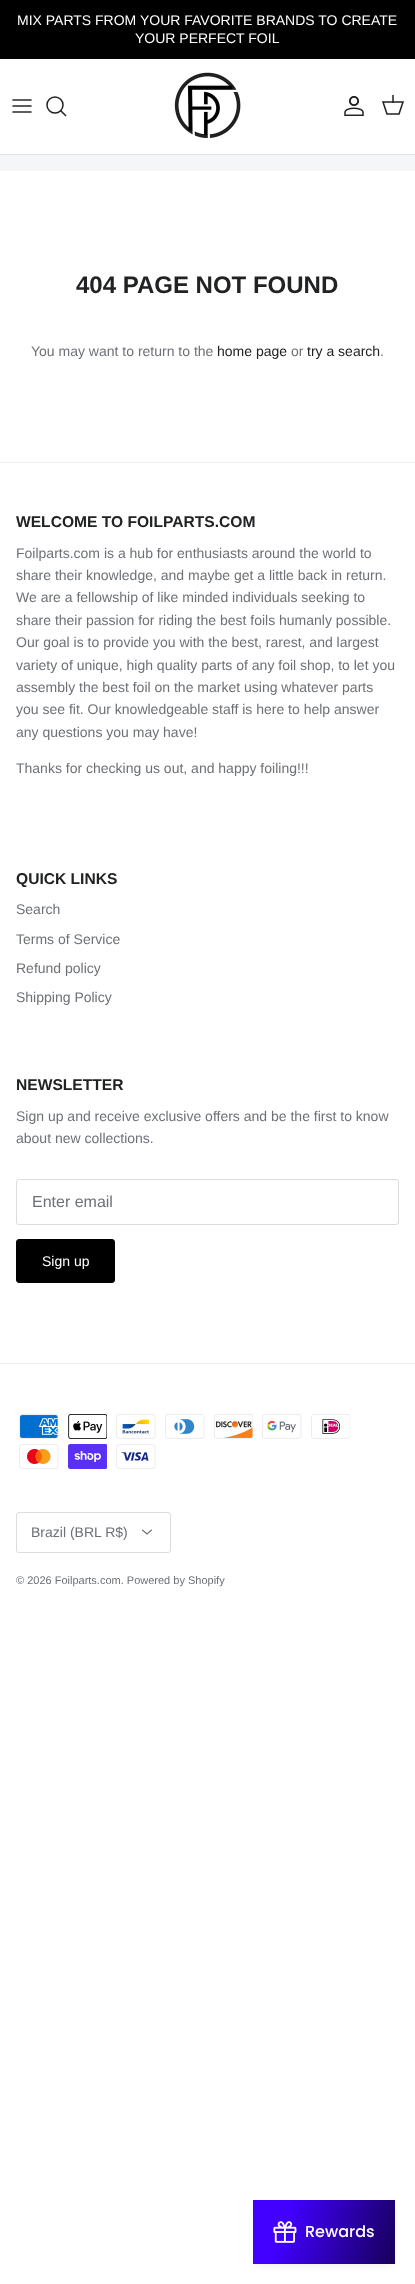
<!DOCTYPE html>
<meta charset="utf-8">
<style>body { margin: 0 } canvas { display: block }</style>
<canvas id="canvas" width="415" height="2284"></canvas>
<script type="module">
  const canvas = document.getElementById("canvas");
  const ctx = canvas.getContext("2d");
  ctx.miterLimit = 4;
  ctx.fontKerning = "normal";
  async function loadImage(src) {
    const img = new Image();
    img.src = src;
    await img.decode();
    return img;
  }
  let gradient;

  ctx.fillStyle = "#ffffff";
  ctx.fillRect(0, 0, 415, 2284);
  ctx.fillStyle = "#000000";
  ctx.fillRect(0, 0, 415, 59);
  ctx.font = "14px Liberation Sans";
  ctx.fillStyle = "#ffffff";
  ctx.fillText("MIX PARTS FROM YOUR FAVORITE BRANDS TO CREATE", 17, 25);
  ctx.fillText("YOUR PERFECT FOIL", 135, 43);
  ctx.fillStyle = "#e2e2e2";
  ctx.fillRect(0, 154, 415, 1);
  ctx.drawImage(await loadImage("img1.png"), 12, 99, 20, 14);
  ctx.beginPath();
  ctx.arc(55, 105, 8, 0, Math.PI * 2);
  ctx.strokeStyle = "#202223";
  ctx.lineWidth = 1.5;
  ctx.stroke();
  ctx.beginPath();
  ctx.moveTo(61, 111);
  ctx.lineTo(65.5, 115.5);
  ctx.lineCap = "square";
  ctx.stroke();
  ctx.drawImage(await loadImage("img2.png"), 174, 72, 67, 67);
  ctx.drawImage(await loadImage("img3.png"), 344, 96, 20, 20);
  ctx.beginPath();
  ctx.moveTo(383, 102);
  ctx.lineTo(403, 102);
  ctx.lineTo(399, 114);
  ctx.lineTo(387, 114);
  ctx.closePath();
  ctx.lineCap = "butt";
  ctx.stroke();
  ctx.fillStyle = "rgba(32, 34, 35, 0.75)";
  ctx.fillRect(392, 95, 2, 8);
  ctx.fillStyle = "#f4f6f8";
  ctx.fillRect(0, 155, 415, 16);
  ctx.font = "bold 24px Liberation Sans";
  ctx.fillStyle = "#202223";
  ctx.fillText("404 PAGE NOT FOUND", 76, 293);
  ctx.font = "14px Liberation Sans";
  ctx.fillStyle = "#6d7175";
  ctx.fillText("You may want to return to the", 31, 356);
  ctx.fillStyle = "#202223";
  ctx.fillText("home page", 217, 356);
  ctx.fillStyle = "#6d7175";
  ctx.fillText("or", 291, 356);
  ctx.fillStyle = "#202223";
  ctx.fillText("try a search", 307, 356);
  ctx.fillStyle = "#6d7175";
  ctx.fillText(".", 380, 356);
  ctx.fillStyle = "#eeeeee";
  ctx.fillRect(0, 462, 415, 1);
  ctx.font = "bold 15.6px Liberation Sans";
  ctx.fillStyle = "#202223";
  ctx.fillText("WELCOME TO FOILPARTS.COM", 16, 527);
  ctx.font = "14px Liberation Sans";
  ctx.fillStyle = "#6d7175";
  ctx.fillText("Foilparts.com is a hub for enthusiasts around the world to", 16, 558);
  ctx.fillText("share their knowledge, and maybe get a little back in return.", 16, 580);
  ctx.fillText("We are a fellowship of like minded individuals seeking to", 16, 602);
  ctx.fillText("share their passion for riding the best foils humanly possible.", 16, 625);
  ctx.fillText("Our goal is to provide you with the best, rarest, and largest", 16, 647);
  ctx.fillText("variety of unique, high quality parts of any foil shop, to let you", 16, 670);
  ctx.fillText("assembly the best foil on the market using whatever parts", 16, 692);
  ctx.fillText("you see fit. Our knowledgeable staff is here to help answer", 16, 714);
  ctx.fillText("any questions you may have!", 16, 737);
  ctx.fillText("Thanks for checking us out, and happy foiling!!!", 16, 773);
  ctx.font = "bold 15.6px Liberation Sans";
  ctx.fillStyle = "#202223";
  ctx.fillText("QUICK LINKS", 16, 884);
  ctx.font = "14px Liberation Sans";
  ctx.fillStyle = "#6d7175";
  ctx.fillText("Search", 16, 914);
  ctx.fillText("Terms of Service", 16, 944);
  ctx.fillText("Refund policy", 16, 973);
  ctx.fillText("Shipping Policy", 16, 1002);
  ctx.font = "bold 15.6px Liberation Sans";
  ctx.fillStyle = "#202223";
  ctx.fillText("NEWSLETTER", 16, 1090);
  ctx.font = "14px Liberation Sans";
  ctx.fillStyle = "#6d7175";
  ctx.fillText("Sign up and receive exclusive offers and be the first to know", 16, 1121);
  ctx.fillText("about new collections.", 16, 1143);
  ctx.beginPath();
  ctx.roundRect(16.5, 1179.5, 382, 45, 2.5);
  ctx.strokeStyle = "#dbdcdd";
  ctx.lineWidth = 1;
  ctx.stroke();
  ctx.font = "16px Liberation Sans";
  ctx.fillText("Enter email", 32, 1207);
  ctx.fillStyle = "#000000";
  ctx.beginPath();
  ctx.roundRect(16.5, 1239.5, 98, 43, 2.5);
  ctx.fill();
  ctx.strokeStyle = "#000000";
  ctx.stroke();
  ctx.font = "14px Liberation Sans";
  ctx.fillStyle = "#ffffff";
  ctx.fillText("Sign up", 42, 1266);
  ctx.fillStyle = "#eeeeee";
  ctx.fillRect(0, 1363, 415, 1);
  ctx.drawImage(await loadImage("img4.png"), 19, 1414, 40, 25);
  ctx.drawImage(await loadImage("img5.png"), 68, 1414, 39, 25);
  ctx.drawImage(await loadImage("img6.png"), 116, 1414, 40, 25);
  ctx.drawImage(await loadImage("img7.png"), 165, 1414, 40, 25);
  ctx.drawImage(await loadImage("img8.png"), 214, 1414, 39, 25);
  ctx.drawImage(await loadImage("img9.png"), 262, 1414, 40, 25);
  ctx.drawImage(await loadImage("img10.png"), 311, 1414, 39, 25);
  ctx.drawImage(await loadImage("img11.png"), 19, 1444, 40, 25);
  ctx.drawImage(await loadImage("img12.png"), 68, 1444, 39, 25);
  ctx.drawImage(await loadImage("img13.png"), 116, 1444, 40, 25);
  ctx.beginPath();
  ctx.roundRect(16.5, 1512.5, 154, 40, 2.5);
  ctx.strokeStyle = "#dbdcdd";
  ctx.stroke();
  ctx.fillStyle = "#6d7175";
  ctx.fillText("Brazil (BRL R$)", 31, 1537);
  ctx.beginPath();
  ctx.moveTo(142.5, 1530);
  ctx.lineTo(147, 1534);
  ctx.lineTo(151.5, 1530);
  ctx.strokeStyle = "#6d7175";
  ctx.lineWidth = 1.1;
  ctx.lineCap = "round";
  ctx.lineJoin = "round";
  ctx.stroke();
  ctx.font = "11px Liberation Sans";
  ctx.fillText("© 2026 Foilparts.com. Powered by Shopify", 16, 1584);
  ctx.fillStyle = "rgba(68, 68, 68, 0.08)";
  ctx.filter = "blur(4px)";
  ctx.beginPath();
  ctx.rect(255, 2206, 138, 60);
  ctx.fill();
  ctx.filter = "none";
  gradient = ctx.createLinearGradient(251, 2206, 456, 2279);
  gradient.addColorStop(0.17, "#4100ff");
  gradient.addColorStop(1, "#000000");
  ctx.fillStyle = gradient;
  ctx.fillRect(253, 2200, 142, 64);
  ctx.drawImage(await loadImage("img14.png"), 273, 2221, 24, 22);
  ctx.font = "500 16px Poppins";
  ctx.fillStyle = "#ffffff";
  ctx.fillText("Rewards", 305, 2237);
</script>
